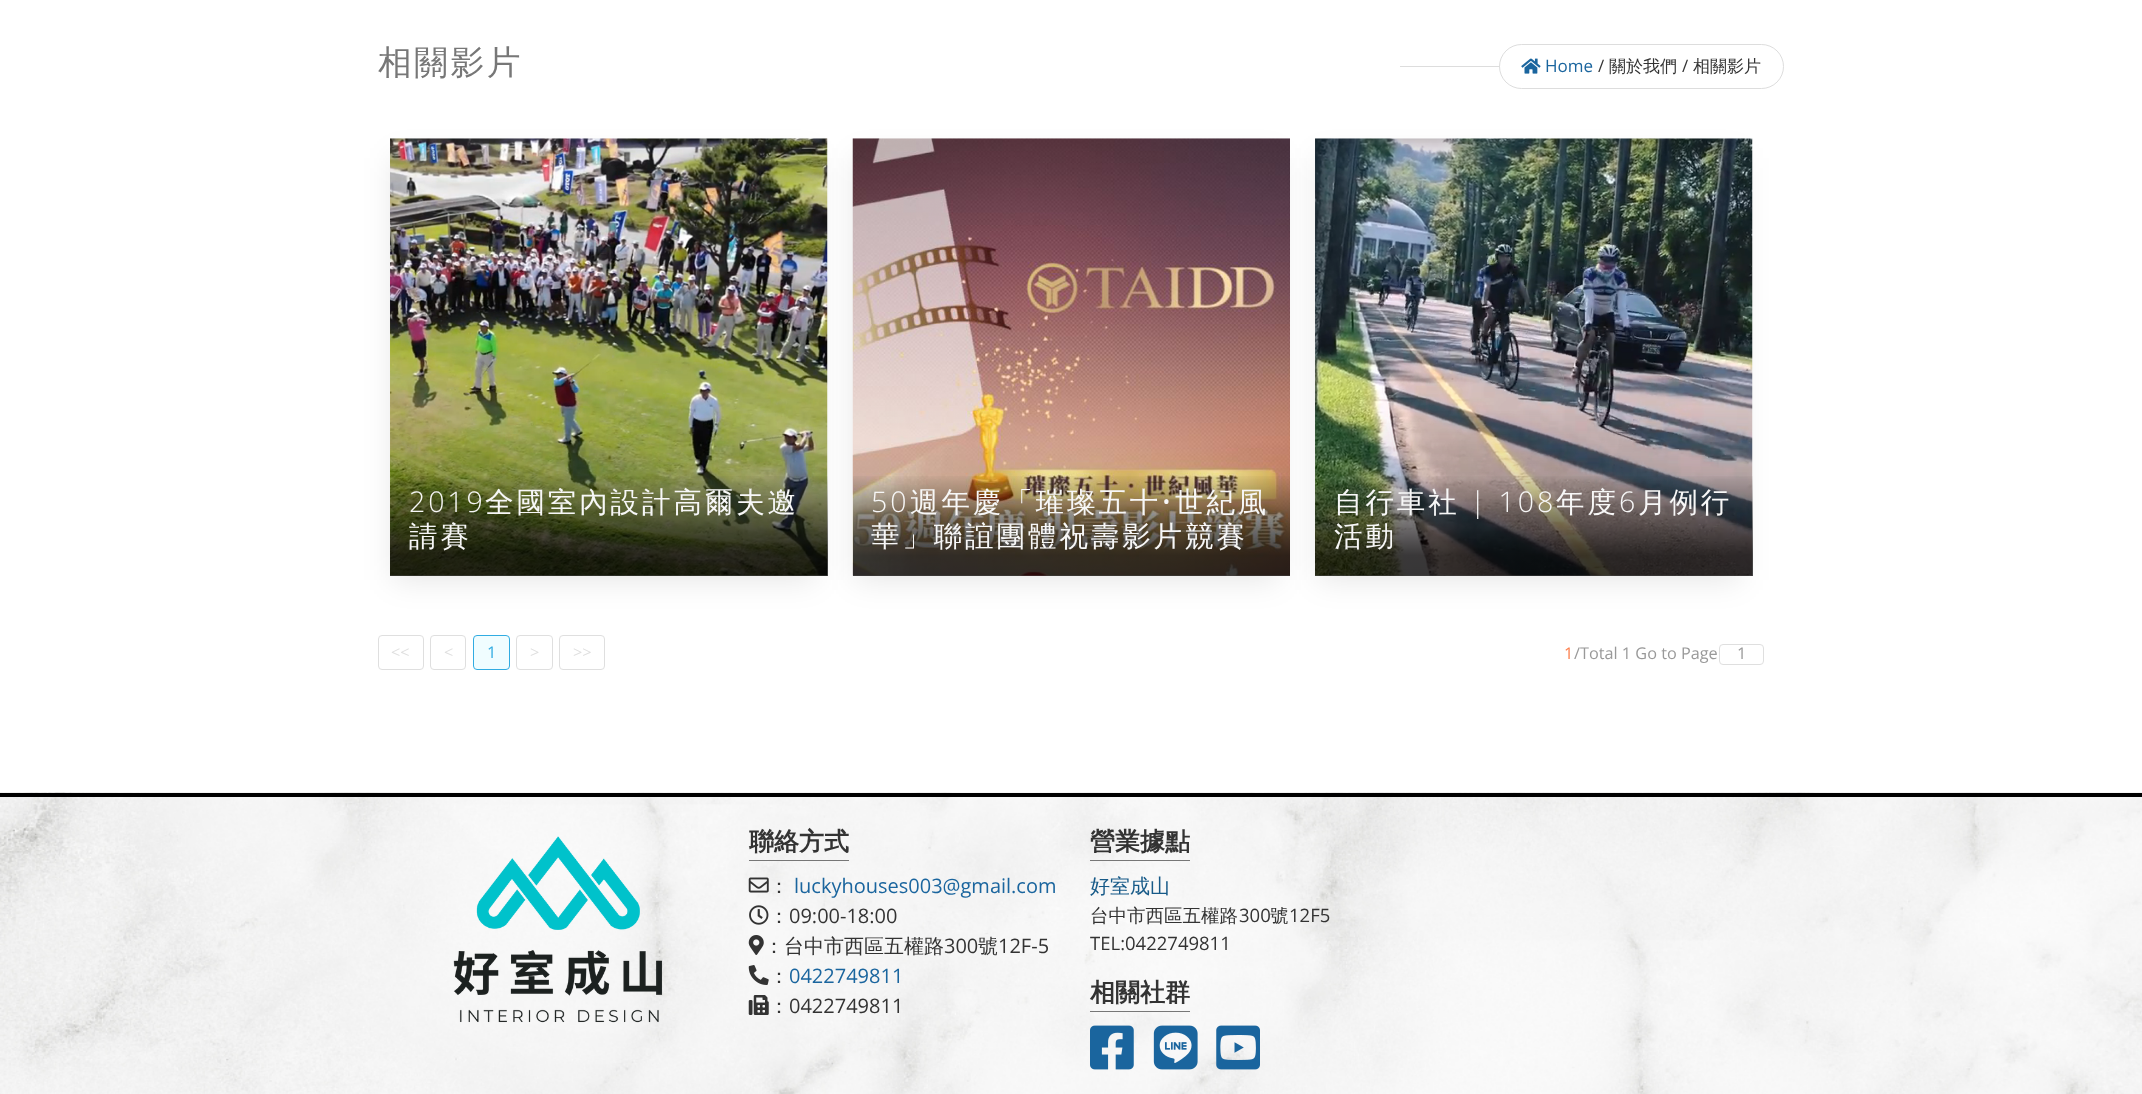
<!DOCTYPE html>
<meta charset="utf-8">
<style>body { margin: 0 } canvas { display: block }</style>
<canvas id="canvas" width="2142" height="1094"></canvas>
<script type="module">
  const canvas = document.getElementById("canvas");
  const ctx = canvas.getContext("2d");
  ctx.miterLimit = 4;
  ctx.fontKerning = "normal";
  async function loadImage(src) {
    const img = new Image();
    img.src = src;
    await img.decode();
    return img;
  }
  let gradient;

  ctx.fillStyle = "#ffffff";
  ctx.fillRect(0, 0, 2142, 1094);
  ctx.letterSpacing = "2.5px";
  ctx.font = "500 33.75px WenQuanYi Zen Hei";
  ctx.fillStyle = "#777777";
  ctx.fillText("相關影片", 378, 74);
  ctx.beginPath();
  ctx.roundRect(1499.5, 44.5, 284, 44, 22);
  ctx.strokeStyle = "#dddddd";
  ctx.stroke();
  ctx.fillStyle = "#dddddd";
  ctx.fillRect(1400, 66, 100, 1);
  ctx.drawImage(await loadImage("img1.png"), 1521, 58, 20, 16);
  ctx.letterSpacing = "0px";
  ctx.font = "17px Open Sans";
  ctx.fillStyle = "#1a659e";
  ctx.fillText("Home", 1545, 72);
  ctx.fillStyle = "#333333";
  ctx.fillText("/", 1598, 72);
  ctx.font = "500 17px WenQuanYi Zen Hei";
  ctx.fillText("關於我們", 1609, 72);
  ctx.font = "17px Open Sans";
  ctx.fillText("/", 1682, 72);
  ctx.font = "500 17px WenQuanYi Zen Hei";
  ctx.fillText("相關影片", 1693, 72);
  ctx.fillStyle = "rgba(0, 0, 0, 0.1)";
  ctx.filter = "blur(15.5px)";
  ctx.beginPath();
  ctx.rect(393, 158, 422, 422);
  ctx.fill();
  ctx.filter = "none";
  ctx.drawImage(await loadImage("img2.png"), 390, 138, 438, 438);
  gradient = ctx.createLinearGradient(609, 576, 609, 473);
  gradient.addColorStop(0.2, "rgba(0, 0, 0, 0.7)");
  gradient.addColorStop(1, "rgba(0, 0, 0, 0)");
  ctx.fillStyle = gradient;
  ctx.fillRect(390, 476, 438, 100);
  ctx.letterSpacing = "2.9px";
  ctx.font = "300 28.5px Open Sans";
  ctx.fillStyle = "#f7f7f7";
  ctx.fillText("2019", 409, 512);
  ctx.font = "500 28.5px WenQuanYi Zen Hei";
  ctx.fillText("全國室內設計高爾夫邀", 485, 512);
  ctx.fillText("請賽", 409, 546);
  ctx.fillStyle = "rgba(0, 0, 0, 0.1)";
  ctx.filter = "blur(15.5px)";
  ctx.beginPath();
  ctx.rect(855, 158, 423, 422);
  ctx.fill();
  ctx.filter = "none";
  ctx.drawImage(await loadImage("img3.png"), 852, 138, 438, 438);
  gradient = ctx.createLinearGradient(1071, 576, 1071, 473);
  gradient.addColorStop(0.2, "rgba(0, 0, 0, 0.7)");
  gradient.addColorStop(1, "rgba(0, 0, 0, 0)");
  ctx.fillStyle = gradient;
  ctx.fillRect(853, 476, 437, 100);
  ctx.font = "300 28.5px Open Sans";
  ctx.fillStyle = "#f7f7f7";
  ctx.fillText("50", 871, 512);
  ctx.font = "500 28.5px WenQuanYi Zen Hei";
  ctx.fillText("週年慶「璀璨五十", 910, 512);
  ctx.font = "300 28.5px Open Sans";
  ctx.fillText("•", 1161, 512);
  ctx.font = "500 28.5px WenQuanYi Zen Hei";
  ctx.fillText("世紀風", 1175, 512);
  ctx.fillText("華」聯誼團體祝壽影片競賽", 871, 546);
  ctx.fillStyle = "rgba(0, 0, 0, 0.1)";
  ctx.filter = "blur(15.5px)";
  ctx.beginPath();
  ctx.rect(1318, 158, 422, 422);
  ctx.fill();
  ctx.filter = "none";
  ctx.drawImage(await loadImage("img4.png"), 1315, 138, 438, 438);
  gradient = ctx.createLinearGradient(1534, 576, 1534, 473);
  gradient.addColorStop(0.2, "rgba(0, 0, 0, 0.7)");
  gradient.addColorStop(1, "rgba(0, 0, 0, 0)");
  ctx.fillStyle = gradient;
  ctx.fillRect(1315, 476, 438, 100);
  ctx.fillStyle = "#f7f7f7";
  ctx.fillText("自行車社", 1334, 512);
  ctx.font = "300 28.5px Open Sans";
  ctx.fillText("| 108", 1470, 512);
  ctx.font = "500 28.5px WenQuanYi Zen Hei";
  ctx.fillText("年度", 1556, 512);
  ctx.font = "300 28.5px Open Sans";
  ctx.fillText("6", 1619, 512);
  ctx.font = "500 28.5px WenQuanYi Zen Hei";
  ctx.fillText("月例行", 1638, 512);
  ctx.fillText("活動", 1334, 546);
  ctx.beginPath();
  ctx.roundRect(378.5, 635.5, 45, 34, 3.5);
  ctx.strokeStyle = "#dfdfdf";
  ctx.stroke();
  ctx.letterSpacing = "0px";
  ctx.font = "16.25px Open Sans";
  ctx.fillStyle = "#dfdfdf";
  ctx.fillText("<<", 391, 658);
  ctx.beginPath();
  ctx.roundRect(430.5, 635.5, 35, 34, 3.5);
  ctx.stroke();
  ctx.fillText("<", 444, 658);
  ctx.fillStyle = "#f0fdff";
  ctx.beginPath();
  ctx.roundRect(473.5, 635.5, 36, 34, 3.5);
  ctx.fill();
  ctx.strokeStyle = "#31ace2";
  ctx.stroke();
  ctx.fillStyle = "#31ace2";
  ctx.fillText("1", 487, 658);
  ctx.beginPath();
  ctx.roundRect(516.5, 635.5, 36, 34, 3.5);
  ctx.strokeStyle = "#dfdfdf";
  ctx.stroke();
  ctx.fillStyle = "#dfdfdf";
  ctx.fillText(">", 530, 658);
  ctx.beginPath();
  ctx.roundRect(559.5, 635.5, 45, 34, 3.5);
  ctx.stroke();
  ctx.fillText(">>", 573, 658);
  ctx.fillStyle = "#fd7f4d";
  ctx.fillText("1", 1564, 659);
  ctx.fillStyle = "#999999";
  ctx.fillText("/Total 1 Go to Page", 1574, 659);
  ctx.beginPath();
  ctx.roundRect(1719.5, 644.5, 44, 20, 3.5);
  ctx.stroke();
  ctx.fillText("1", 1737, 659);
  ctx.drawImage(await loadImage("img5.png"), 0, 792, 2142, 302);
  ctx.fillStyle = "#000000";
  ctx.fillRect(0, 793, 2142, 4);
  ctx.drawImage(await loadImage("img6.png"), 453, 836, 210, 187);
  ctx.font = "bold 25px WenQuanYi Zen Hei";
  ctx.fillStyle = "#333333";
  ctx.fillText("聯絡方式", 749, 850);
  ctx.fillStyle = "#777777";
  ctx.fillRect(749, 860, 100, 1);
  ctx.drawImage(await loadImage("img7.png"), 748, 877, 21, 16);
  ctx.font = "500 20px WenQuanYi Zen Hei";
  ctx.fillStyle = "#333333";
  ctx.fillText("：", 769, 893);
  ctx.font = "20px Open Sans";
  ctx.fillStyle = "#1a659e";
  ctx.fillText("luckyhouses003@gmail.com", 794, 893);
  ctx.drawImage(await loadImage("img8.png"), 749, 905, 20, 20);
  ctx.font = "500 20px WenQuanYi Zen Hei";
  ctx.fillStyle = "#333333";
  ctx.fillText("：", 769, 923);
  ctx.font = "20px Open Sans";
  ctx.fillText("09:00-18:00", 789, 923);
  ctx.drawImage(await loadImage("img9.png"), 748, 935, 16, 20);
  ctx.font = "500 20px WenQuanYi Zen Hei";
  ctx.fillText("：台中市西區五權路", 764, 953);
  ctx.font = "20px Open Sans";
  ctx.fillText("300", 944, 953);
  ctx.font = "500 20px WenQuanYi Zen Hei";
  ctx.fillText("號", 978, 953);
  ctx.font = "20px Open Sans";
  ctx.fillText("12F-5", 998, 953);
  ctx.drawImage(await loadImage("img10.png"), 748, 965, 21, 20);
  ctx.font = "500 20px WenQuanYi Zen Hei";
  ctx.fillText("：", 769, 983);
  ctx.font = "20px Open Sans";
  ctx.fillStyle = "#1a659e";
  ctx.fillText("0422749811", 789, 983);
  ctx.drawImage(await loadImage("img11.png"), 748, 995, 21, 20);
  ctx.font = "500 20px WenQuanYi Zen Hei";
  ctx.fillStyle = "#333333";
  ctx.fillText("：", 769, 1013);
  ctx.font = "20px Open Sans";
  ctx.fillText("0422749811", 789, 1013);
  ctx.font = "bold 25px WenQuanYi Zen Hei";
  ctx.fillText("營業據點", 1090, 850);
  ctx.fillStyle = "#777777";
  ctx.fillRect(1090, 860, 100, 1);
  ctx.font = "500 20px WenQuanYi Zen Hei";
  ctx.fillStyle = "#175a88";
  ctx.fillText("好室成山", 1090, 893);
  ctx.font = "500 18.5px WenQuanYi Zen Hei";
  ctx.fillStyle = "#333333";
  ctx.fillText("台中市西區五權路", 1090, 922);
  ctx.font = "18.5px Open Sans";
  ctx.fillText("300", 1239, 922);
  ctx.font = "500 18.5px WenQuanYi Zen Hei";
  ctx.fillText("號", 1270, 922);
  ctx.font = "18.5px Open Sans";
  ctx.fillText("12F5", 1289, 922);
  ctx.fillText("TEL:0422749811", 1090, 950);
  ctx.font = "bold 25px WenQuanYi Zen Hei";
  ctx.fillText("相關社群", 1090, 1001);
  ctx.fillStyle = "#777777";
  ctx.fillRect(1090, 1011, 100, 1);
  ctx.drawImage(await loadImage("img12.png"), 1090, 1025, 44, 45);
  ctx.drawImage(await loadImage("img13.png"), 1153, 1025, 45, 45);
  ctx.drawImage(await loadImage("img14.png"), 1216, 1025, 44, 45);
</script>
